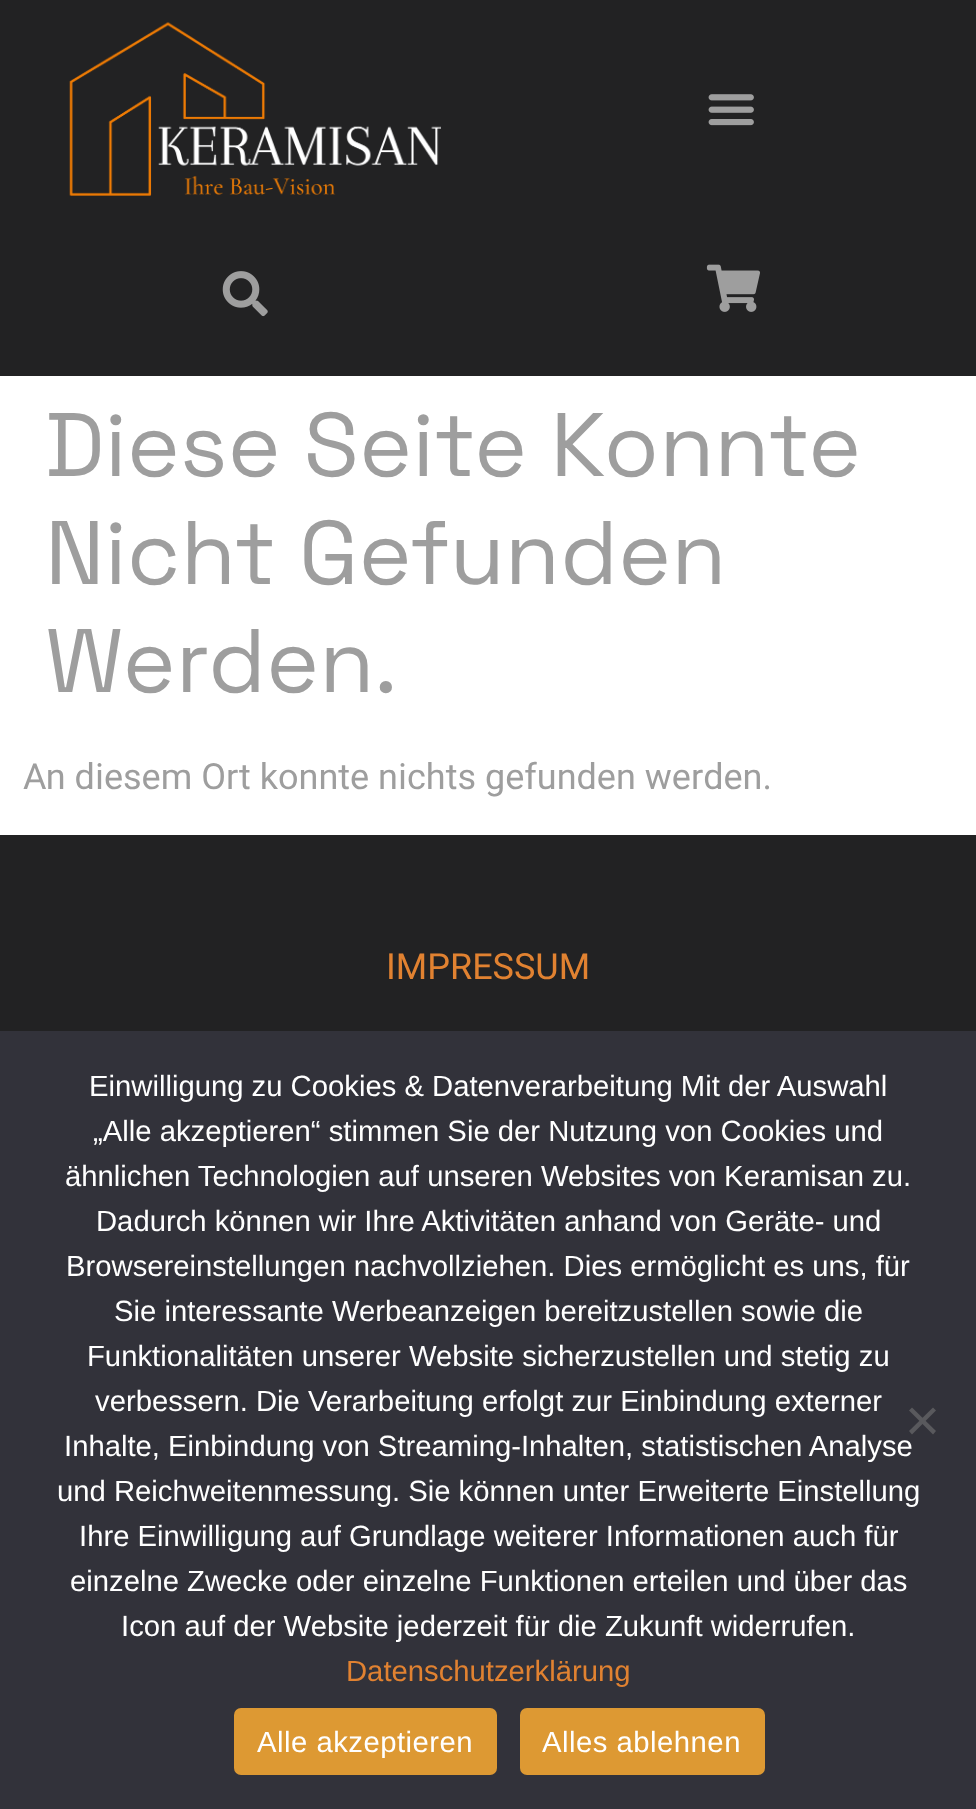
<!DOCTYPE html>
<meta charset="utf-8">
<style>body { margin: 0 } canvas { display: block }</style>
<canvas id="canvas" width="976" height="1809"></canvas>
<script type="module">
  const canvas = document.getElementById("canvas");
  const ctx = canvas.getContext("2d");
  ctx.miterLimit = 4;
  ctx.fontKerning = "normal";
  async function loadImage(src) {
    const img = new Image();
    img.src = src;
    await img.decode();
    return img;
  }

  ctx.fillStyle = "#ffffff";
  ctx.fillRect(0, 0, 976, 1809);
  ctx.fillStyle = "#222223";
  ctx.fillRect(0, 0, 976, 376);
  ctx.drawImage(await loadImage("img1.png"), 69, 22, 372, 174);
  ctx.drawImage(await loadImage("img2.png"), 708, 94, 46, 32);
  ctx.drawImage(await loadImage("img3.png"), 222, 271, 46, 46);
  ctx.drawImage(await loadImage("img4.png"), 706, 264, 54, 48);
  ctx.font = "90px Space Grotesk";
  ctx.fillStyle = "#9e9e9e";
  ctx.fillText("Diese Seite Konnte", 45, 476);
  ctx.fillText("Nicht Gefunden", 45, 584);
  ctx.fillText("Werden.", 45, 692);
  ctx.font = "36px Heebo";
  ctx.fillText("An diesem Ort konnte nichts gefunden werden.", 23, 789);
  ctx.fillStyle = "#222223";
  ctx.fillRect(0, 835, 976, 196);
  ctx.fillStyle = "#e18231";
  ctx.fillText("IMPRESSUM", 386, 979);
  ctx.fillStyle = "#32323a";
  ctx.fillRect(0, 1031, 976, 778);
  ctx.font = "29.25px Liberation Sans";
  ctx.fillStyle = "#ffffff";
  ctx.fillText("Einwilligung zu Cookies & Datenverarbeitung Mit der Auswahl", 89, 1096);
  ctx.fillText("„Alle akzeptieren“ stimmen Sie der Nutzung von Cookies und", 93, 1141);
  ctx.fillText("ähnlichen Technologien auf unseren Websites von Keramisan zu.", 65, 1186);
  ctx.fillText("Dadurch können wir Ihre Aktivitäten anhand von Geräte- und", 96, 1231);
  ctx.fillText("Browsereinstellungen nachvollziehen. Dies ermöglicht es uns, für", 66, 1276);
  ctx.fillText("Sie interessante Werbeanzeigen bereitzustellen sowie die", 114, 1321);
  ctx.fillText("Funktionalitäten unserer Website sicherzustellen und stetig zu", 87, 1366);
  ctx.fillText("verbessern. Die Verarbeitung erfolgt zur Einbindung externer", 95, 1411);
  ctx.fillText("Inhalte, Einbindung von Streaming-Inhalten, statistischen Analyse", 64, 1456);
  ctx.fillText("und Reichweitenmessung. Sie können unter Erweiterte Einstellung", 57, 1501);
  ctx.fillText("Ihre Einwilligung auf Grundlage weiterer Informationen auch für", 79, 1546);
  ctx.fillText("einzelne Zwecke oder einzelne Funktionen erteilen und über das", 70, 1591);
  ctx.fillText("Icon auf der Website jederzeit für die Zukunft widerrufen.", 121, 1636);
  ctx.fillStyle = "#e18231";
  ctx.fillText("Datenschutzerklärung", 346, 1681);
  ctx.fillStyle = "#59595d";
  ctx.beginPath();
  ctx.moveTo(933, 1407.5);
  ctx.lineTo(936, 1410.5);
  ctx.lineTo(912, 1434.5);
  ctx.lineTo(909, 1431);
  ctx.closePath();
  ctx.fill();
  ctx.beginPath();
  ctx.moveTo(909, 1410.5);
  ctx.lineTo(912, 1407.5);
  ctx.lineTo(936, 1431);
  ctx.lineTo(933, 1434.5);
  ctx.closePath();
  ctx.fill();
  ctx.fillStyle = "#dd9933";
  ctx.beginPath();
  ctx.roundRect(234, 1708, 263, 67, 7);
  ctx.fill();
  ctx.letterSpacing = "0.5px";
  ctx.fillStyle = "#ffffff";
  ctx.fillText("Alle akzeptieren", 257, 1752);
  ctx.fillStyle = "#dd9933";
  ctx.beginPath();
  ctx.roundRect(520, 1708, 245, 67, 7);
  ctx.fill();
  ctx.fillStyle = "#ffffff";
  ctx.fillText("Alles ablehnen", 542, 1752);
</script>
